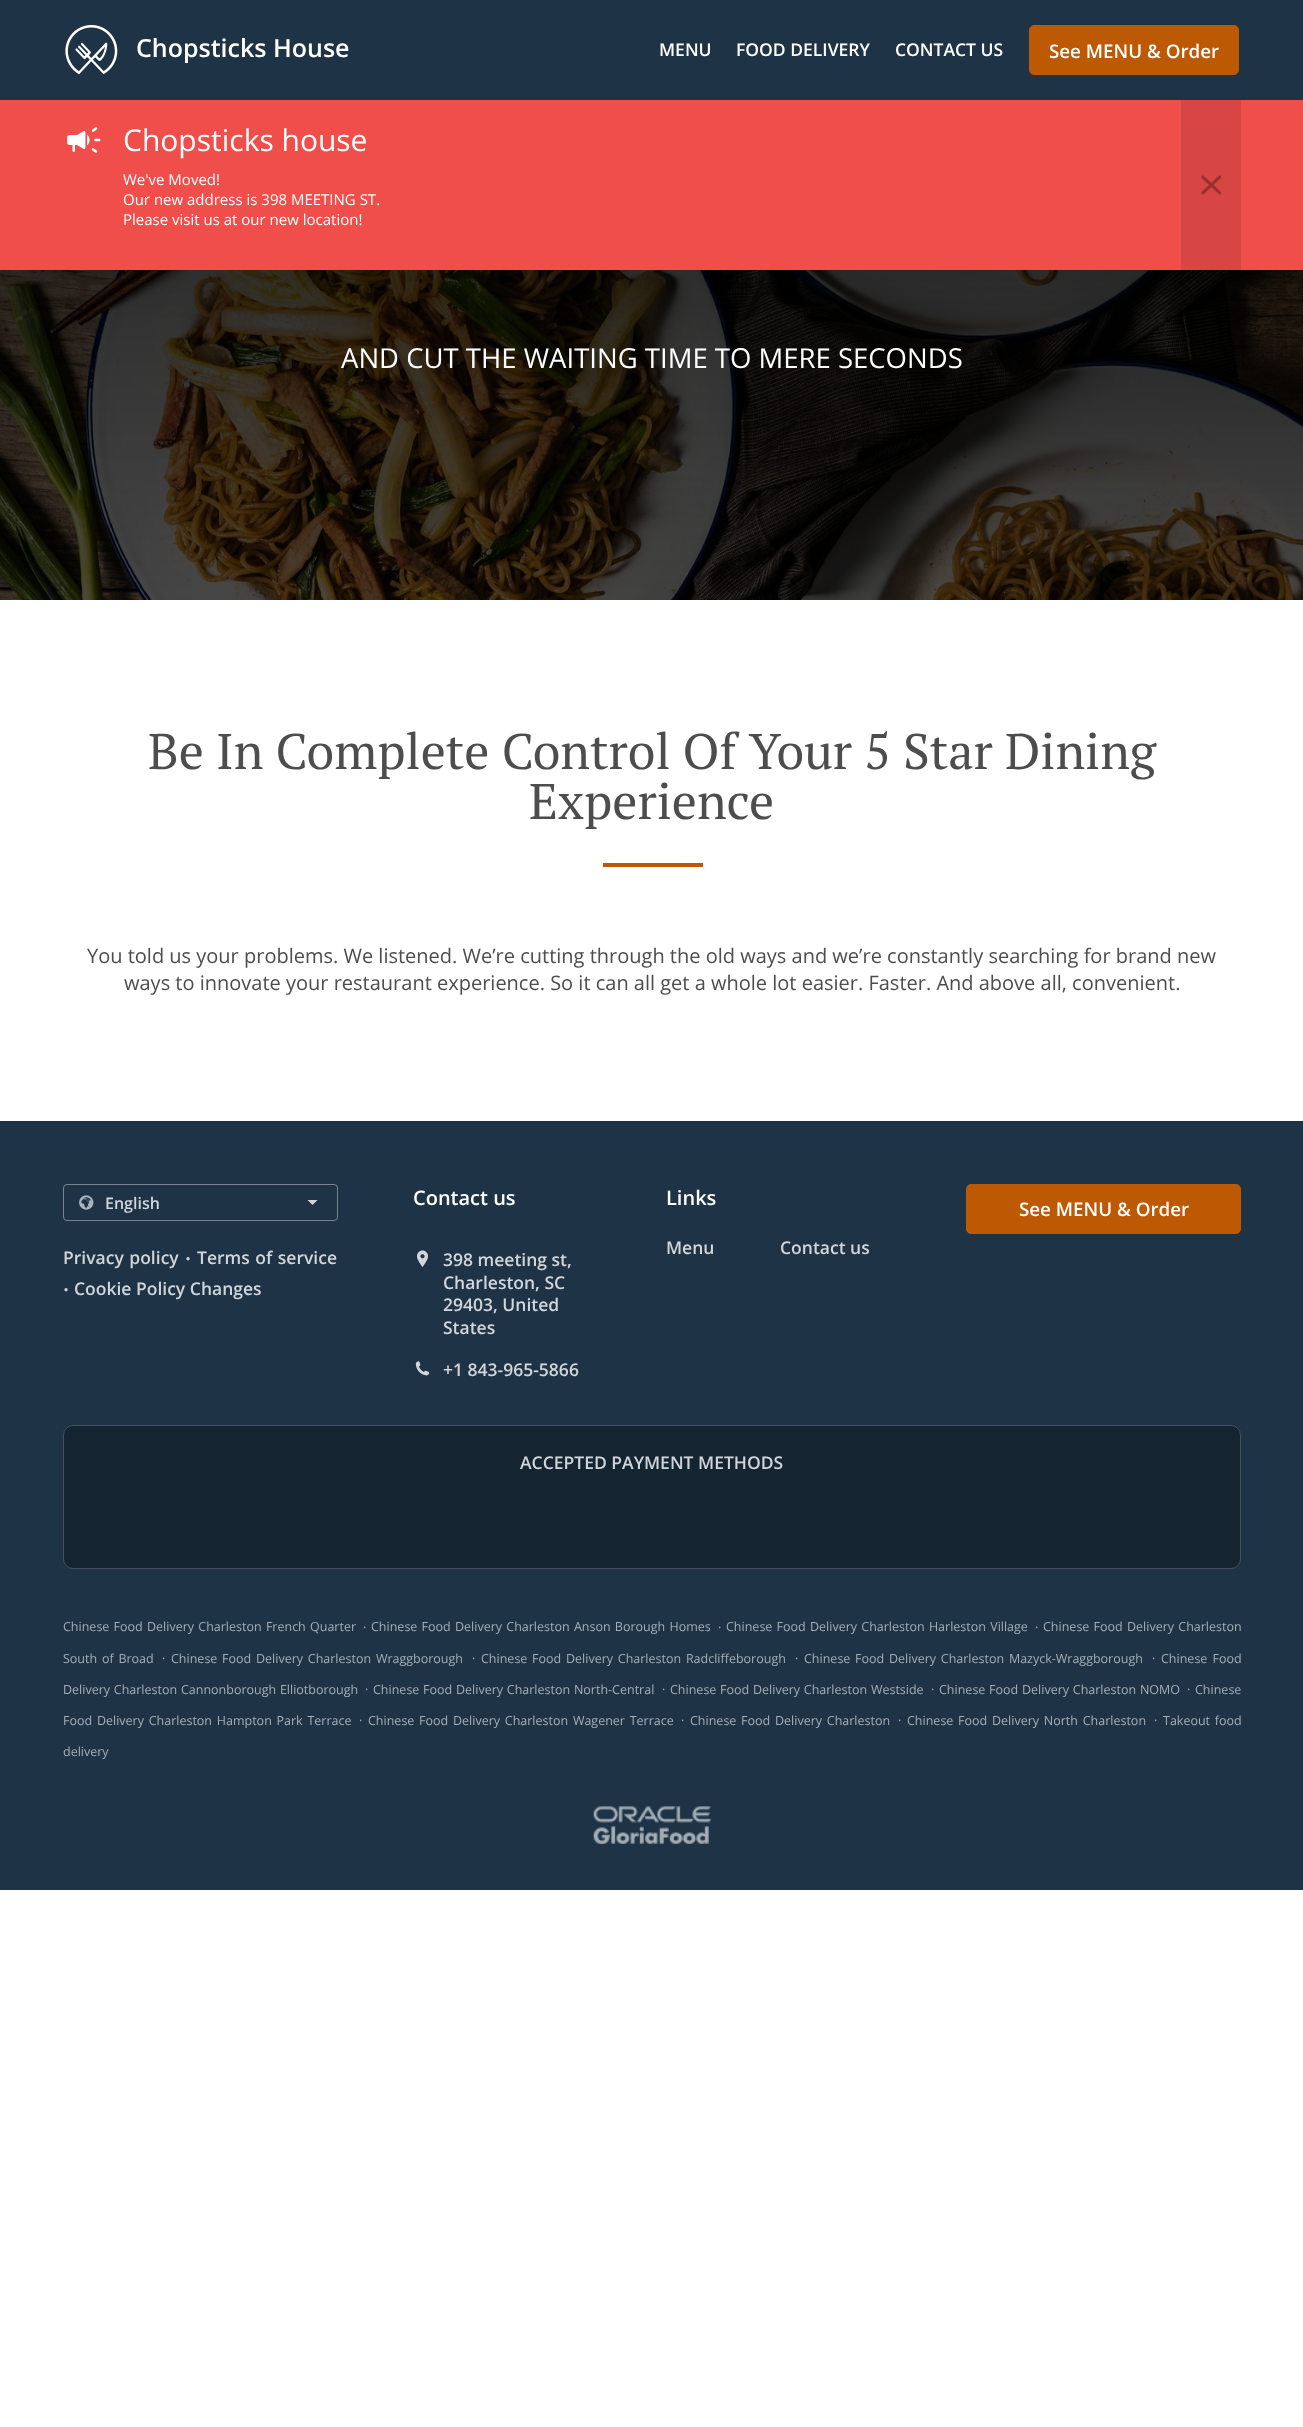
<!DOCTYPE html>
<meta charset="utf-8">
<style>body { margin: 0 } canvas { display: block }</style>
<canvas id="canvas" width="1303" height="2427"></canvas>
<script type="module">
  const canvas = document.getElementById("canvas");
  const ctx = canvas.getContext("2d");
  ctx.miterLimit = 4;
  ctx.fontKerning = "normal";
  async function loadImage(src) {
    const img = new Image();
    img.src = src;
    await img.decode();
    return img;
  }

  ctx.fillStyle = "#ffffff";
  ctx.fillRect(0, 0, 1303, 2427);
  ctx.fillStyle = "#1e3446";
  ctx.fillRect(0, 0, 1303, 100);
  ctx.drawImage(await loadImage("img1.png"), 65, 25, 53, 50);
  ctx.font = "600 25px Open Sans";
  ctx.fillStyle = "#ffffff";
  ctx.fillText("Chopsticks House", 136, 57);
  ctx.font = "600 17.5px Open Sans";
  ctx.fillText("MENU", 659, 56);
  ctx.fillText("FOOD DELIVERY", 736, 56);
  ctx.fillText("CONTACT US", 895, 56);
  ctx.fillStyle = "#bd5902";
  ctx.beginPath();
  ctx.roundRect(1029.5, 25.5, 209, 49, 4.5);
  ctx.fill();
  ctx.strokeStyle = "#bd5902";
  ctx.stroke();
  ctx.font = "600 18.75px Open Sans";
  ctx.fillStyle = "#ffffff";
  ctx.fillText("See MENU & Order", 1049, 58);
  ctx.fillStyle = "#ef4e4b";
  ctx.fillRect(0, 100, 1303, 170);
  ctx.drawImage(await loadImage("img2.png"), 67, 127, 34, 26);
  ctx.font = "30px Open Sans";
  ctx.fillStyle = "#ffffff";
  ctx.fillText("Chopsticks house", 123, 151);
  ctx.font = "15px Open Sans";
  ctx.fillText("We've Moved!", 123, 185);
  ctx.fillText("Our new address is 398 MEETING ST.", 123, 205);
  ctx.fillText("Please visit us at our new location!", 123, 225);
  ctx.fillStyle = "#d74644";
  ctx.fillRect(1181, 100, 60, 170);
  ctx.drawImage(await loadImage("img3.png"), 1201, 175, 20, 20);
  ctx.drawImage(await loadImage("img4.png"), 0, 270, 1303, 330);
  ctx.font = "27.5px Open Sans";
  ctx.fillStyle = "#ffffff";
  ctx.fillText("AND CUT THE WAITING TIME TO MERE SECONDS", 341, 368);
  ctx.font = "50px PT Serif";
  ctx.fillStyle = "#4d4d4d";
  ctx.fillText("Be In Complete Control Of Your 5 Star Dining", 148, 769);
  ctx.fillText("Experience", 529, 819);
  ctx.fillStyle = "#bd5902";
  ctx.fillRect(603, 863, 100, 4);
  ctx.font = "20px Open Sans";
  ctx.fillStyle = "#4d4d4d";
  ctx.fillText("You told us your problems. We listened. We’re cutting through the old ways and we’re constantly searching for brand new", 87, 963);
  ctx.fillText("ways to innovate your restaurant experience. So it can all get a whole lot easier. Faster. And above all, convenient.", 124, 990);
  ctx.fillStyle = "#1e3446";
  ctx.fillRect(0, 1121, 1303, 769);
  ctx.drawImage(await loadImage("img5.png"), 79, 1195, 15, 15);
  ctx.beginPath();
  ctx.roundRect(63.5, 1184.5, 274, 36, 3.5);
  ctx.strokeStyle = "#788590";
  ctx.stroke();
  ctx.font = "600 16px Open Sans";
  ctx.fillStyle = "#d2d6da";
  ctx.fillText("English", 105, 1209);
  ctx.beginPath();
  ctx.moveTo(307.5, 1200);
  ctx.lineTo(317.5, 1200);
  ctx.lineTo(312.5, 1205);
  ctx.closePath();
  ctx.fill();
  ctx.wordSpacing = "1px";
  ctx.font = "600 17.5px Open Sans";
  ctx.fillText("Privacy policy", 63, 1264);
  ctx.wordSpacing = "0px";
  ctx.font = "600 22px Open Sans";
  ctx.fillText(".", 185, 1260);
  ctx.wordSpacing = "1px";
  ctx.font = "600 17.5px Open Sans";
  ctx.fillText("Terms of service", 197, 1264);
  ctx.wordSpacing = "0px";
  ctx.font = "600 22px Open Sans";
  ctx.fillText(".", 63, 1291);
  ctx.font = "600 17.5px Open Sans";
  ctx.fillText("Cookie Policy Changes", 74, 1295);
  ctx.font = "600 20px Open Sans";
  ctx.fillStyle = "#ffffff";
  ctx.fillText("Contact us", 413, 1205);
  ctx.drawImage(await loadImage("img6.png"), 416, 1250, 12, 17);
  ctx.font = "600 17.5px Open Sans";
  ctx.fillStyle = "#d2d6da";
  ctx.fillText("398 meeting st,", 443, 1266);
  ctx.fillText("Charleston, SC", 443, 1289);
  ctx.fillText("29403, United", 443, 1311);
  ctx.fillText("States", 443, 1334);
  ctx.drawImage(await loadImage("img7.png"), 415, 1361, 15, 15);
  ctx.fillText("+1 843-965-5866", 443, 1376);
  ctx.font = "600 20px Open Sans";
  ctx.fillStyle = "#ffffff";
  ctx.fillText("Links", 666, 1205);
  ctx.font = "600 17.5px Open Sans";
  ctx.fillStyle = "#d2d6da";
  ctx.fillText("Menu", 666, 1254);
  ctx.fillText("Contact us", 780, 1254);
  ctx.fillStyle = "#bd5902";
  ctx.beginPath();
  ctx.roundRect(966.5, 1184.5, 274, 49, 4.5);
  ctx.fill();
  ctx.strokeStyle = "#bd5902";
  ctx.stroke();
  ctx.font = "600 18.75px Open Sans";
  ctx.fillStyle = "#ffffff";
  ctx.fillText("See MENU & Order", 1019, 1216);
  ctx.fillStyle = "#152431";
  ctx.beginPath();
  ctx.roundRect(63, 1425, 1178, 144, 10);
  ctx.fill();
  ctx.beginPath();
  ctx.roundRect(63.5, 1425.5, 1177, 143, 9.5);
  ctx.strokeStyle = "rgba(255, 255, 255, 0.2)";
  ctx.stroke();
  ctx.font = "600 17.5px Open Sans";
  ctx.fillStyle = "#d2d6da";
  ctx.fillText("ACCEPTED PAYMENT METHODS", 520, 1469);
  ctx.wordSpacing = "1px";
  ctx.font = "12.5px Open Sans";
  ctx.fillStyle = "#a5aeb5";
  ctx.fillText("Chinese Food Delivery Charleston French Quarter", 63, 1631);
  ctx.wordSpacing = "0px";
  ctx.fillText(".", 363, 1628);
  ctx.wordSpacing = "1px";
  ctx.fillText("Chinese Food Delivery Charleston Anson Borough Homes", 371, 1631);
  ctx.wordSpacing = "0px";
  ctx.fillText(".", 718, 1628);
  ctx.wordSpacing = "1px";
  ctx.fillText("Chinese Food Delivery Charleston Harleston Village", 726, 1631);
  ctx.wordSpacing = "0px";
  ctx.fillText(".", 1035, 1628);
  ctx.wordSpacing = "1px";
  ctx.fillText("Chinese Food Delivery Charleston", 1043, 1631);
  ctx.wordSpacing = "1.5px";
  ctx.fillText("South of Broad", 63, 1663);
  ctx.wordSpacing = "0px";
  ctx.fillText(".", 162, 1659);
  ctx.wordSpacing = "1.5px";
  ctx.fillText("Chinese Food Delivery Charleston Wraggborough", 171, 1663);
  ctx.wordSpacing = "0px";
  ctx.fillText(".", 472, 1659);
  ctx.wordSpacing = "1.5px";
  ctx.fillText("Chinese Food Delivery Charleston Radcliffeborough", 481, 1663);
  ctx.wordSpacing = "0px";
  ctx.fillText(".", 795, 1659);
  ctx.wordSpacing = "1.5px";
  ctx.fillText("Chinese Food Delivery Charleston Mazyck-Wraggborough", 804, 1663);
  ctx.wordSpacing = "0px";
  ctx.fillText(".", 1152, 1659);
  ctx.wordSpacing = "2px";
  ctx.fillText("Chinese Food", 1161, 1663);
  ctx.wordSpacing = "0.5px";
  ctx.fillText("Delivery Charleston Cannonborough Elliotborough", 63, 1694);
  ctx.wordSpacing = "0px";
  ctx.fillText(".", 365, 1690);
  ctx.wordSpacing = "0.5px";
  ctx.fillText("Chinese Food Delivery Charleston North-Central", 373, 1694);
  ctx.wordSpacing = "0px";
  ctx.fillText(".", 662, 1690);
  ctx.wordSpacing = "0.5px";
  ctx.fillText("Chinese Food Delivery Charleston Westside", 670, 1694);
  ctx.wordSpacing = "0px";
  ctx.fillText(".", 931, 1690);
  ctx.wordSpacing = "0.5px";
  ctx.fillText("Chinese Food Delivery Charleston NOMO", 939, 1694);
  ctx.wordSpacing = "0px";
  ctx.fillText(".", 1187, 1690);
  ctx.fillText("Chinese", 1195, 1694);
  ctx.wordSpacing = "1.5px";
  ctx.fillText("Food Delivery Charleston Hampton Park Terrace", 63, 1725);
  ctx.wordSpacing = "0px";
  ctx.fillText(".", 359, 1721);
  ctx.wordSpacing = "1.5px";
  ctx.fillText("Chinese Food Delivery Charleston Wagener Terrace", 368, 1725);
  ctx.wordSpacing = "0px";
  ctx.fillText(".", 681, 1721);
  ctx.wordSpacing = "1.5px";
  ctx.fillText("Chinese Food Delivery Charleston", 690, 1725);
  ctx.wordSpacing = "0px";
  ctx.fillText(".", 898, 1721);
  ctx.wordSpacing = "1.5px";
  ctx.fillText("Chinese Food Delivery North Charleston", 907, 1725);
  ctx.wordSpacing = "0px";
  ctx.fillText(".", 1154, 1721);
  ctx.wordSpacing = "1.5px";
  ctx.fillText("Takeout food", 1163, 1725);
  ctx.wordSpacing = "0px";
  ctx.fillText("delivery", 63, 1756);
  ctx.drawImage(await loadImage("img8.png"), 593, 1806, 119, 39);
</script>
